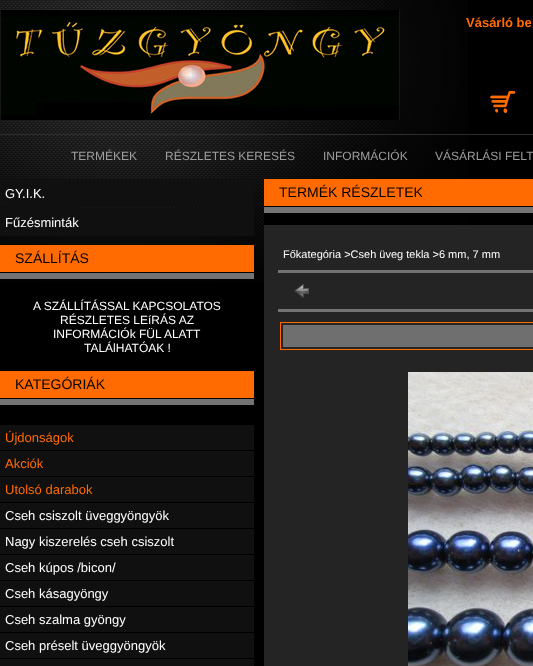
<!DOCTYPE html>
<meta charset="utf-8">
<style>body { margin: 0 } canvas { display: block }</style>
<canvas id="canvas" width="533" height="666"></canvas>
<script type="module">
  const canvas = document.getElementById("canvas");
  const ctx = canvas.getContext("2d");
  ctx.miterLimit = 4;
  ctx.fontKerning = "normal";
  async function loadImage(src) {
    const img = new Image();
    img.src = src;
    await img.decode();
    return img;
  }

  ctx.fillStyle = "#000000";
  ctx.fillRect(0, 0, 533, 666);
  ctx.drawImage(await loadImage("img1.png"), 0, 0, 468, 282);
  ctx.drawImage(await loadImage("img2.png"), 0, 10, 400, 110);
  ctx.font = "bold 13px Liberation Sans";
  ctx.fillStyle = "#ff6b00";
  ctx.fillText("Vásárló be", 466, 27);
  ctx.drawImage(await loadImage("img3.png"), 490, 91, 26, 22);
  ctx.fillStyle = "#2c2c2c";
  ctx.fillRect(0, 134, 533, 1);
  ctx.font = "12px Liberation Sans";
  ctx.fillStyle = "#9e9e9e";
  ctx.fillText("TERMÉKEK", 71, 160);
  ctx.fillText("RÉSZLETES KERESÉS", 165, 160);
  ctx.fillText("INFORMÁCIÓK", 323, 160);
  ctx.fillText("VÁSÁRLÁSI FELT", 435, 160);
  ctx.fillStyle = "#242424";
  ctx.fillRect(264, 225, 269, 441);
  ctx.fillStyle = "#101010";
  ctx.fillRect(0, 179, 254, 28);
  ctx.font = "13px Liberation Sans";
  ctx.fillStyle = "#ffffff";
  ctx.fillText("GY.I.K.", 5, 198);
  ctx.fillStyle = "#101010";
  ctx.fillRect(0, 208, 254, 28);
  ctx.fillStyle = "#ffffff";
  ctx.fillText("Fűzésminták", 5, 227);
  ctx.fillStyle = "#ff6b00";
  ctx.fillRect(0, 245, 254, 27);
  ctx.font = "14px Liberation Sans";
  ctx.fillStyle = "#000000";
  ctx.fillText("SZÁLLÍTÁS", 15, 263);
  ctx.fillStyle = "#737373";
  ctx.fillRect(0, 273, 254, 6);
  ctx.font = "12px Liberation Sans";
  ctx.fillStyle = "#ffffff";
  ctx.fillText("A SZÁLLÍTÁSSAL KAPCSOLATOS", 33, 310);
  ctx.fillText("RÉSZLETES LEíRÁS AZ", 60, 324);
  ctx.fillText("INFORMÁCIÓk FÜL ALATT", 53, 338);
  ctx.fillText("TALÁlHATÓAK !", 84, 352);
  ctx.fillStyle = "#ff6b00";
  ctx.fillRect(0, 371, 254, 27);
  ctx.font = "14px Liberation Sans";
  ctx.fillStyle = "#000000";
  ctx.fillText("KATEGÓRIÁK", 15, 389);
  ctx.fillStyle = "#737373";
  ctx.fillRect(0, 399, 254, 6);
  ctx.fillStyle = "#101010";
  ctx.fillRect(0, 425, 254, 25);
  ctx.font = "13px Liberation Sans";
  ctx.fillStyle = "#ff6b00";
  ctx.fillText("Újdonságok", 5, 442);
  ctx.fillStyle = "#101010";
  ctx.fillRect(0, 451, 254, 25);
  ctx.fillStyle = "#ff6b00";
  ctx.fillText("Akciók", 5, 468);
  ctx.fillStyle = "#101010";
  ctx.fillRect(0, 477, 254, 25);
  ctx.fillStyle = "#ff6b00";
  ctx.fillText("Utolsó darabok", 5, 494);
  ctx.fillStyle = "#101010";
  ctx.fillRect(0, 503, 254, 25);
  ctx.fillStyle = "#ffffff";
  ctx.fillText("Cseh csiszolt üveggyöngyök", 5, 520);
  ctx.fillStyle = "#101010";
  ctx.fillRect(0, 529, 254, 25);
  ctx.fillStyle = "#ffffff";
  ctx.fillText("Nagy kiszerelés cseh csiszolt", 5, 546);
  ctx.fillStyle = "#101010";
  ctx.fillRect(0, 555, 254, 25);
  ctx.fillStyle = "#ffffff";
  ctx.fillText("Cseh kúpos /bicon/", 5, 572);
  ctx.fillStyle = "#101010";
  ctx.fillRect(0, 581, 254, 25);
  ctx.fillStyle = "#ffffff";
  ctx.fillText("Cseh kásagyöngy", 5, 598);
  ctx.fillStyle = "#101010";
  ctx.fillRect(0, 607, 254, 25);
  ctx.fillStyle = "#ffffff";
  ctx.fillText("Cseh szalma gyöngy", 5, 624);
  ctx.fillStyle = "#101010";
  ctx.fillRect(0, 633, 254, 25);
  ctx.fillStyle = "#ffffff";
  ctx.fillText("Cseh préselt üveggyöngyök", 5, 650);
  ctx.fillStyle = "#101010";
  ctx.fillRect(0, 659, 254, 7);
  ctx.fillStyle = "#ff6b00";
  ctx.fillRect(264, 179, 269, 27);
  ctx.font = "14px Liberation Sans";
  ctx.fillStyle = "#000000";
  ctx.fillText("TERMÉK RÉSZLETEK", 279, 197);
  ctx.fillRect(264, 206, 168, 1);
  ctx.fillStyle = "#737373";
  ctx.fillRect(264, 207, 269, 6);
  ctx.fillStyle = "#000000";
  ctx.fillRect(264, 213, 198, 12);
  ctx.font = "11px Liberation Sans";
  ctx.fillStyle = "#ffffff";
  ctx.fillText("Főkategória >Cseh üveg tekla >6 mm, 7 mm", 283, 258);
  ctx.fillStyle = "#737373";
  ctx.fillRect(278, 270, 255, 3);
  ctx.drawImage(await loadImage("img4.png"), 294, 284, 15, 14);
  ctx.fillRect(278, 309, 255, 3);
  ctx.strokeStyle = "#ff6b00";
  ctx.strokeRect(280.5, 322.5, 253, 27);
  ctx.fillStyle = "#6f6f6f";
  ctx.fillRect(283, 325, 250, 22);
  ctx.drawImage(await loadImage("img5.png"), 408, 372, 125, 294);
</script>
